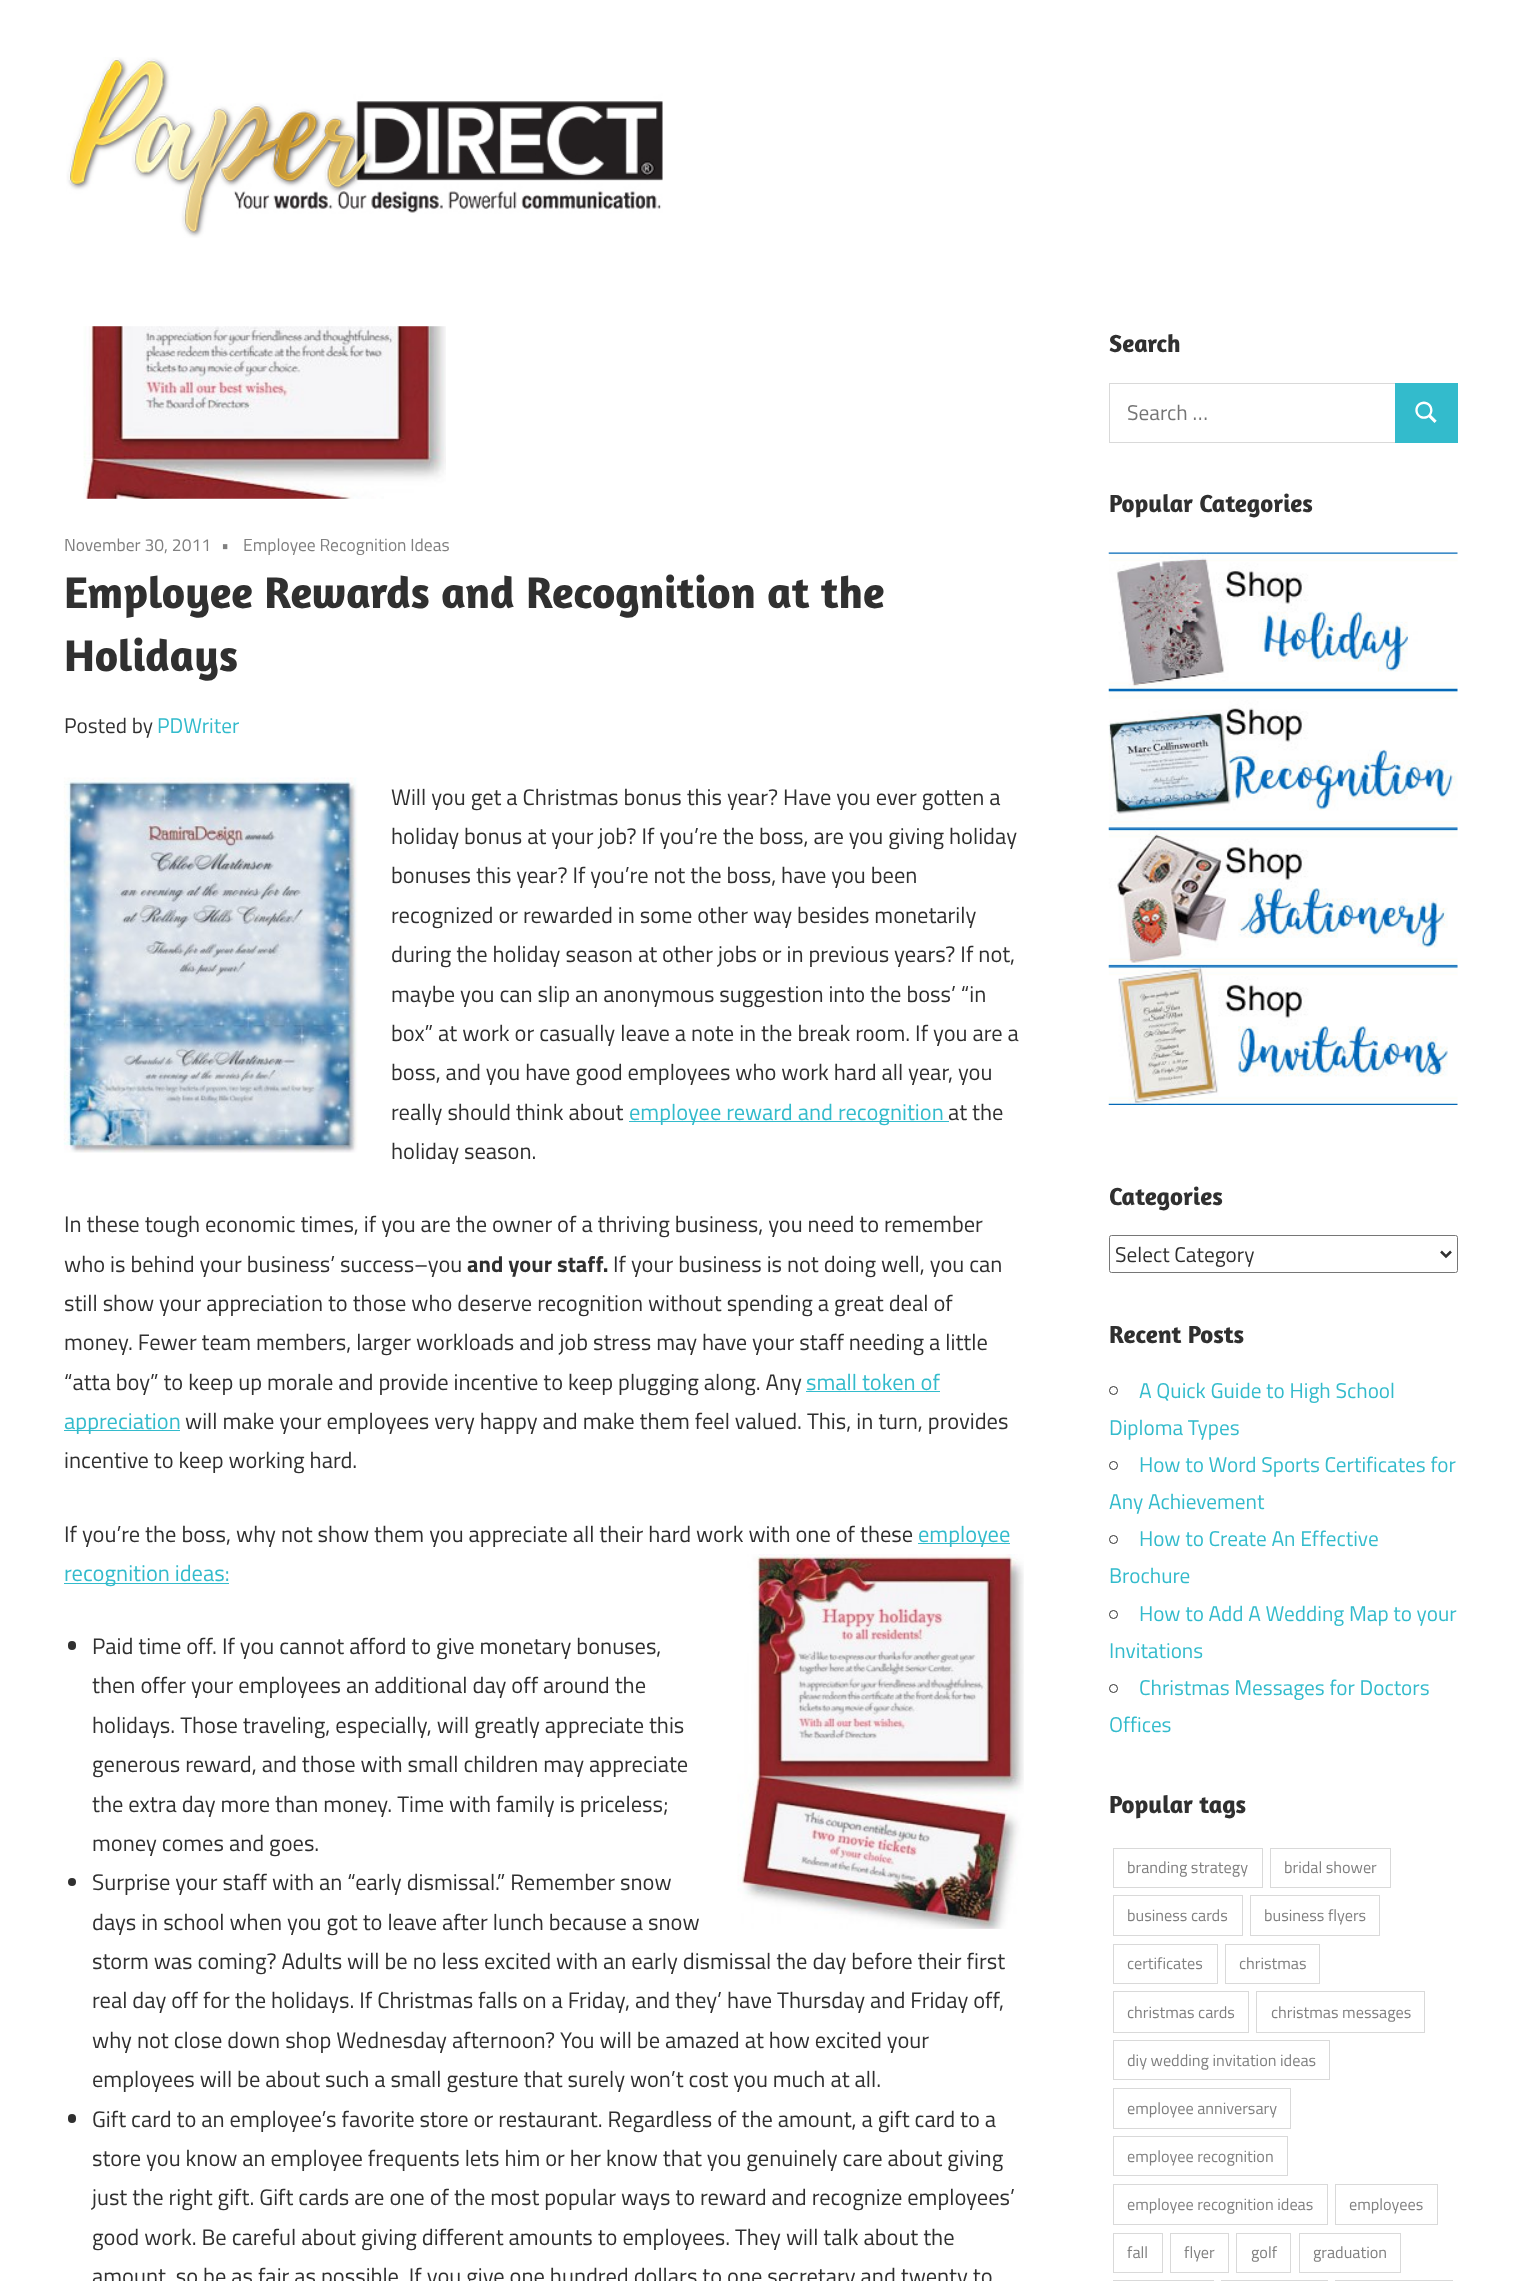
<!DOCTYPE html>
<meta charset="utf-8">
<style>body { margin: 0 } canvas { display: block }</style>
<canvas id="canvas" width="1521" height="2281"></canvas>
<script type="module">
  const canvas = document.getElementById("canvas");
  const ctx = canvas.getContext("2d");
  ctx.miterLimit = 4;
  ctx.fontKerning = "normal";
  async function loadImage(src) {
    const img = new Image();
    img.src = src;
    await img.decode();
    return img;
  }

  ctx.fillStyle = "#ffffff";
  ctx.fillRect(0, 0, 1521, 2281);
  ctx.drawImage(await loadImage("img1.png"), 66, 57, 597, 181);
  ctx.drawImage(await loadImage("img2.png"), 83, 326, 363, 173);
  ctx.font = "17.5px Titillium Web";
  ctx.fillStyle = "#808080";
  ctx.fillText("November 30, 2011", 64, 551);
  ctx.fillText("•", 221, 551);
  ctx.fillText("Employee Recognition Ideas", 243, 551);
  ctx.font = "bold 45px Amaranth";
  ctx.fillStyle = "#303030";
  ctx.fillText("Employee Rewards and Recognition at the", 64, 608);
  ctx.fillText("Holidays", 64, 671);
  ctx.font = "21.25px Titillium Web";
  ctx.fillText("Posted by", 64, 733);
  ctx.fillStyle = "#33bbcc";
  ctx.fillText("PDWriter", 157, 733);
  ctx.drawImage(await loadImage("img3.png"), 63, 777, 295, 376);
  ctx.font = "22.5px Titillium Web";
  ctx.fillStyle = "#303030";
  ctx.fillText("Will you get a Christmas bonus this year? Have you ever gotten a", 391, 805);
  ctx.fillText("holiday bonus at your job? If you’re the boss, are you giving holiday", 391, 844);
  ctx.fillText("bonuses this year? If you’re not the boss, have you been", 391, 883);
  ctx.fillText("recognized or rewarded in some other way besides monetarily", 391, 923);
  ctx.fillText("during the holiday season at other jobs or in previous years? If not,", 391, 962);
  ctx.fillText("maybe you can slip an anonymous suggestion into the boss’ “in", 391, 1002);
  ctx.fillText("box” at work or casually leave a note in the break room. If you are a", 391, 1041);
  ctx.fillText("boss, and you have good employees who work hard all year, you", 391, 1080);
  ctx.fillText("really should think about", 391, 1120);
  ctx.fillStyle = "#33bbcc";
  ctx.fillRect(629, 1121, 320, 1);
  ctx.fillText("employee reward and recognition", 629, 1120);
  ctx.fillStyle = "#303030";
  ctx.fillText("at the", 948, 1120);
  ctx.fillText("holiday season.", 391, 1159);
  ctx.fillText("In these tough economic times, if you are the owner of a thriving business, you need to remember", 64, 1232);
  ctx.fillText("who is behind your business’ success–you", 64, 1272);
  ctx.font = "bold 22.5px Titillium Web";
  ctx.fillText("and your staff.", 467, 1272);
  ctx.font = "22.5px Titillium Web";
  ctx.fillText("If your business is not doing well, you can", 613, 1272);
  ctx.fillText("still show your appreciation to those who deserve recognition without spending a great deal of", 64, 1311);
  ctx.fillText("money. Fewer team members, larger workloads and job stress may have your staff needing a little", 64, 1350);
  ctx.fillText("“atta boy” to keep up morale and provide incentive to keep plugging along. Any", 64, 1390);
  ctx.fillStyle = "#33bbcc";
  ctx.fillText("small token of", 806, 1390);
  ctx.fillRect(806, 1391, 134, 1);
  ctx.fillRect(64, 1430, 116, 1);
  ctx.fillText("appreciation", 64, 1429);
  ctx.fillStyle = "#303030";
  ctx.fillText("will make your employees very happy and make them feel valued. This, in turn, provides", 185, 1429);
  ctx.fillText("incentive to keep working hard.", 64, 1468);
  ctx.fillText("If you’re the boss, why not show them you appreciate all their hard work with one of these", 64, 1542);
  ctx.fillStyle = "#33bbcc";
  ctx.fillRect(918, 1543, 92, 1);
  ctx.fillText("employee", 918, 1542);
  ctx.fillRect(64, 1583, 165, 1);
  ctx.fillText("recognition ideas:", 64, 1581);
  ctx.drawImage(await loadImage("img4.png"), 737, 1554, 287, 375);
  ctx.fillStyle = "#303030";
  ctx.beginPath();
  ctx.roundRect(68, 1641, 8, 9, 4);
  ctx.fill();
  ctx.fillText("Paid time off. If you cannot afford to give monetary bonuses,", 92, 1654);
  ctx.fillText("then offer your employees an additional day off around the", 92, 1693);
  ctx.fillText("holidays. Those traveling, especially, will greatly appreciate this", 92, 1733);
  ctx.fillText("generous reward, and those with small children may appreciate", 92, 1772);
  ctx.fillText("the extra day more than money. Time with family is priceless;", 92, 1812);
  ctx.fillText("money comes and goes.", 92, 1851);
  ctx.beginPath();
  ctx.arc(72, 1882, 4, 0, Math.PI * 2);
  ctx.fill();
  ctx.fillText("Surprise your staff with an “early dismissal.” Remember snow", 92, 1890);
  ctx.fillText("days in school when you got to leave after lunch because a snow", 92, 1930);
  ctx.fillText("storm was coming? Adults will be no less excited with an early dismissal the day before their first", 92, 1969);
  ctx.fillText("real day off for the holidays. If Christmas falls on a Friday, and they’ have Thursday and Friday off,", 92, 2008);
  ctx.fillText("why not close down shop Wednesday afternoon? You will be amazed at how excited your", 92, 2048);
  ctx.fillText("employees will be about such a small gesture that surely won’t cost you much at all.", 92, 2087);
  ctx.beginPath();
  ctx.roundRect(68, 2114, 8, 9, 4);
  ctx.fill();
  ctx.fillText("Gift card to an employee’s favorite store or restaurant. Regardless of the amount, a gift card to a", 92, 2127);
  ctx.fillText("store you know an employee frequents lets him or her know that you genuinely care about giving", 92, 2166);
  ctx.fillText("just the right gift. Gift cards are one of the most popular ways to reward and recognize employees’", 92, 2205);
  ctx.fillText("good work. Be careful about giving different amounts to employees. They will talk about the", 92, 2245);
  ctx.fillText("amount, so be as fair as possible. If you give one hundred dollars to one secretary and twenty to", 92, 2284);
  ctx.font = "bold 25px Amaranth";
  ctx.fillText("Search", 1109, 352);
  ctx.strokeStyle = "#d9d9d9";
  ctx.strokeRect(1109.5, 383.5, 286, 59);
  ctx.font = "21.25px Titillium Web";
  ctx.fillStyle = "#757575";
  ctx.fillText("Search …", 1127, 420);
  ctx.fillStyle = "#33bbcc";
  ctx.fillRect(1395, 383, 63, 60);
  ctx.drawImage(await loadImage("img5.png"), 1415, 401, 22, 22);
  ctx.font = "bold 25px Amaranth";
  ctx.fillStyle = "#303030";
  ctx.fillText("Popular Categories", 1109, 512);
  ctx.drawImage(await loadImage("img6.png"), 1108, 552, 350, 138);
  ctx.drawImage(await loadImage("img7.png"), 1108, 690, 350, 139);
  ctx.drawImage(await loadImage("img8.png"), 1108, 828, 350, 139);
  ctx.drawImage(await loadImage("img9.png"), 1108, 966, 350, 139);
  ctx.fillText("Categories", 1109, 1205);
  ctx.beginPath();
  ctx.roundRect(1109.5, 1235.5, 348, 37, 2);
  ctx.strokeStyle = "#767676";
  ctx.stroke();
  ctx.beginPath();
  ctx.moveTo(1441, 1251.5);
  ctx.lineTo(1446, 1256.5);
  ctx.lineTo(1451, 1251.5);
  ctx.strokeStyle = "#303030";
  ctx.lineWidth = 2.5;
  ctx.stroke();
  ctx.font = "21.25px Titillium Web";
  ctx.fillText("Select Category", 1115, 1262);
  ctx.font = "bold 25px Amaranth";
  ctx.fillText("Recent Posts", 1109, 1343);
  ctx.beginPath();
  ctx.arc(1113.5, 1390.5, 4, 0, Math.PI * 2);
  ctx.lineWidth = 1;
  ctx.stroke();
  ctx.font = "21.25px Titillium Web";
  ctx.fillStyle = "#33bbcc";
  ctx.fillText("A Quick Guide to High School", 1139, 1398);
  ctx.fillText("Diploma Types", 1109, 1435);
  ctx.beginPath();
  ctx.arc(1113.5, 1465.5, 4, 0, Math.PI * 2);
  ctx.stroke();
  ctx.fillText("How to Word Sports Certificates for", 1139, 1472);
  ctx.fillText("Any Achievement", 1109, 1509);
  ctx.beginPath();
  ctx.arc(1113.5, 1539.5, 4, 0, Math.PI * 2);
  ctx.stroke();
  ctx.fillText("How to Create An Effective", 1139, 1546);
  ctx.fillText("Brochure", 1109, 1583);
  ctx.beginPath();
  ctx.arc(1113.5, 1614.5, 4, 0, Math.PI * 2);
  ctx.stroke();
  ctx.fillText("How to Add A Wedding Map to your", 1139, 1621);
  ctx.fillText("Invitations", 1109, 1658);
  ctx.beginPath();
  ctx.arc(1113.5, 1688.5, 4, 0, Math.PI * 2);
  ctx.stroke();
  ctx.fillText("Christmas Messages for Doctors", 1139, 1695);
  ctx.fillText("Offices", 1109, 1732);
  ctx.font = "bold 25px Amaranth";
  ctx.fillStyle = "#303030";
  ctx.fillText("Popular tags", 1109, 1813);
  ctx.strokeStyle = "#d9d9d9";
  ctx.strokeRect(1113.5, 1848.5, 149, 39);
  ctx.font = "16.25px Titillium Web";
  ctx.fillStyle = "#808080";
  ctx.fillText("branding strategy", 1127, 1873);
  ctx.strokeRect(1270.5, 1848.5, 120, 39);
  ctx.fillText("bridal shower", 1284, 1873);
  ctx.strokeRect(1113.5, 1895.5, 129, 40);
  ctx.fillText("business cards", 1127, 1921);
  ctx.strokeRect(1250.5, 1895.5, 129, 40);
  ctx.fillText("business flyers", 1264, 1921);
  ctx.strokeRect(1113.5, 1944.5, 104, 39);
  ctx.fillText("certificates", 1127, 1969);
  ctx.strokeRect(1225.5, 1944.5, 94, 39);
  ctx.fillText("christmas", 1239, 1969);
  ctx.strokeRect(1113.5, 1991.5, 135, 41);
  ctx.fillText("christmas cards", 1127, 2018);
  ctx.strokeRect(1256.5, 1991.5, 168, 41);
  ctx.fillText("christmas messages", 1271, 2018);
  ctx.strokeRect(1113.5, 2040.5, 216, 39);
  ctx.fillText("diy wedding invitation ideas", 1127, 2066);
  ctx.strokeRect(1113.5, 2088.5, 177, 40);
  ctx.fillText("employee anniversary", 1127, 2114);
  ctx.strokeRect(1113.5, 2136.5, 174, 39);
  ctx.fillText("employee recognition", 1127, 2162);
  ctx.strokeRect(1113.5, 2184.5, 214, 40);
  ctx.fillText("employee recognition ideas", 1127, 2210);
  ctx.strokeRect(1335.5, 2184.5, 102, 40);
  ctx.fillText("employees", 1349, 2210);
  ctx.strokeRect(1113.5, 2233.5, 49, 39);
  ctx.fillText("fall", 1127, 2258);
  ctx.strokeRect(1170.5, 2233.5, 58, 39);
  ctx.fillText("flyer", 1184, 2258);
  ctx.strokeRect(1236.5, 2233.5, 54, 39);
  ctx.fillText("golf", 1251, 2258);
  ctx.strokeRect(1299.5, 2233.5, 101, 39);
  ctx.fillText("graduation", 1313, 2258);
  ctx.strokeRect(1113.5, 2280.5, 100, 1);
  ctx.strokeRect(1221.5, 2280.5, 106, 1);
  ctx.strokeRect(1335.5, 2280.5, 117, 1);
</script>
